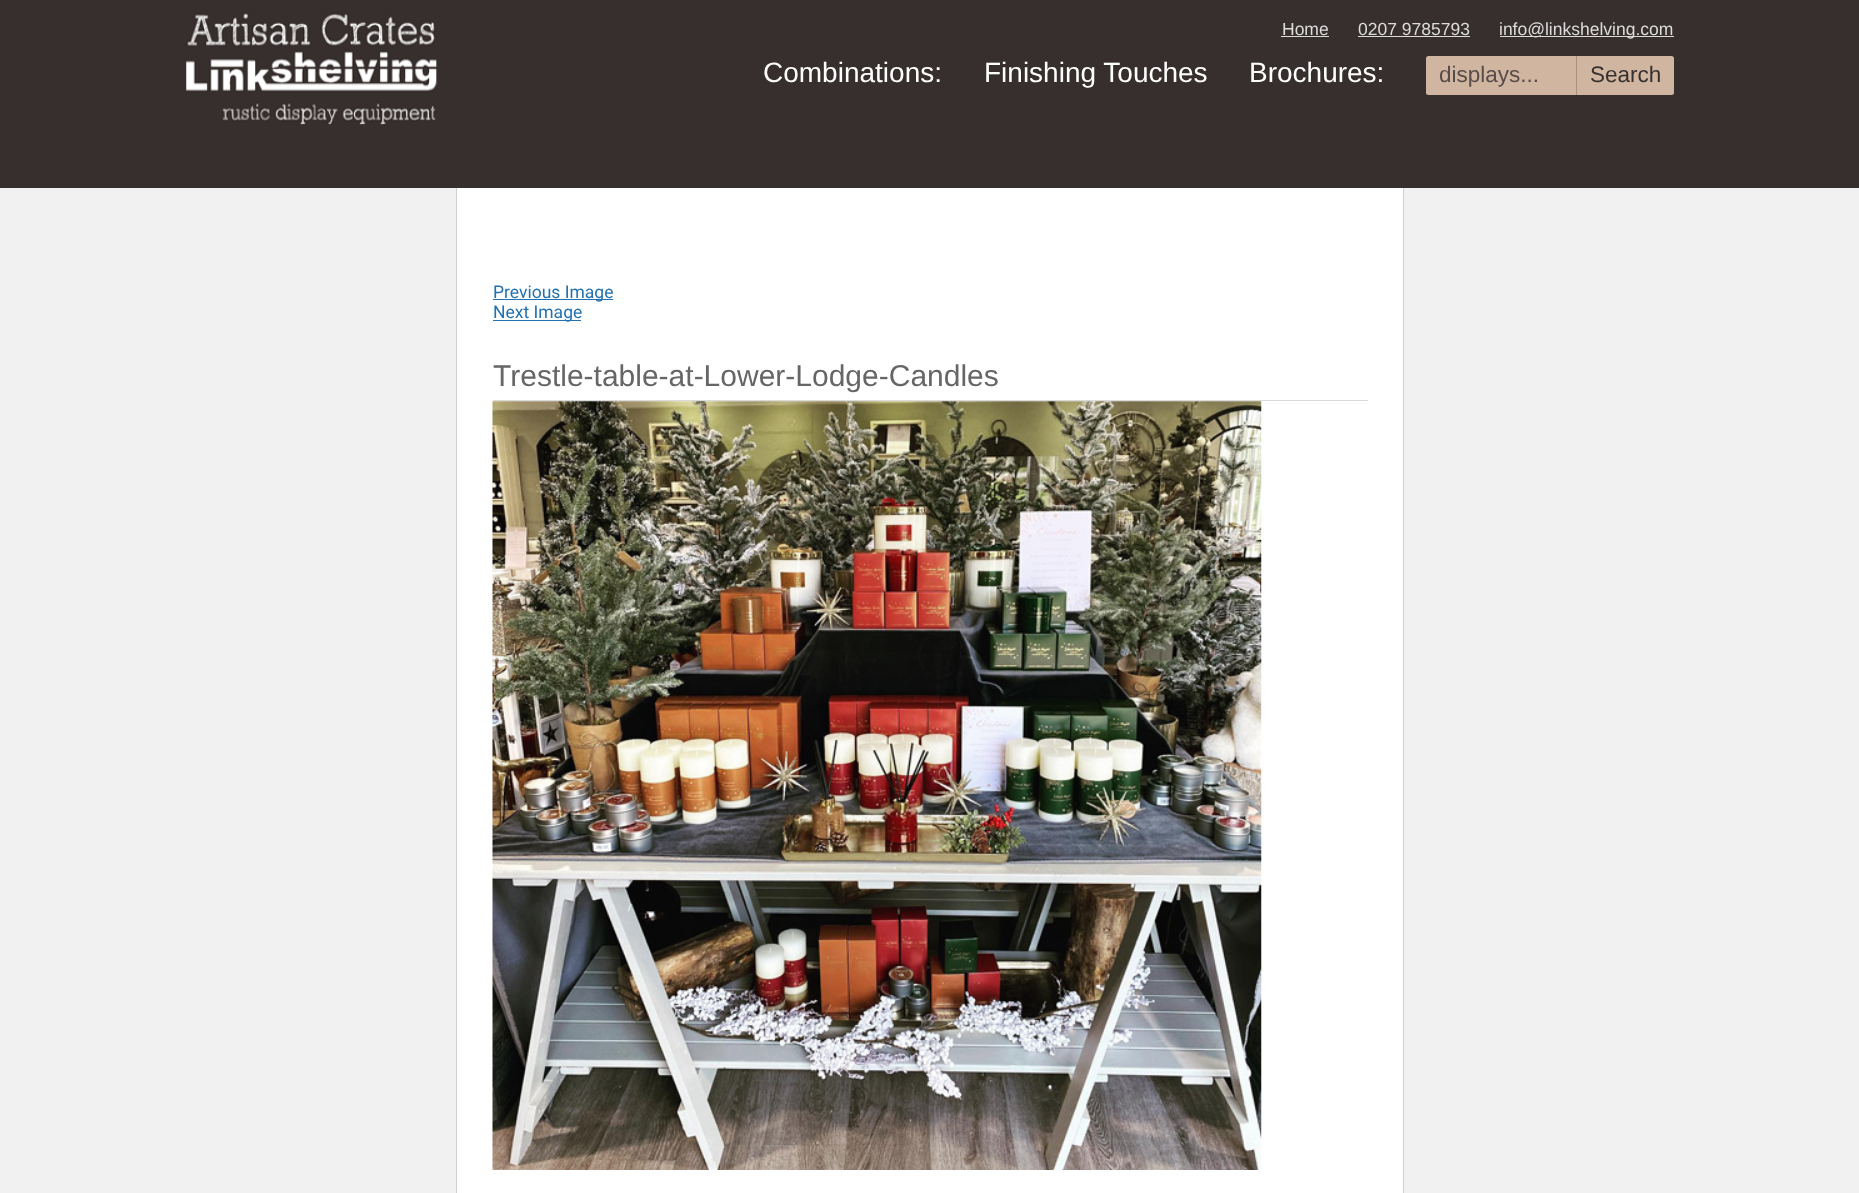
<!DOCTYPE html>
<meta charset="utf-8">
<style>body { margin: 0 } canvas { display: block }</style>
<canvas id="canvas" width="1859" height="1193"></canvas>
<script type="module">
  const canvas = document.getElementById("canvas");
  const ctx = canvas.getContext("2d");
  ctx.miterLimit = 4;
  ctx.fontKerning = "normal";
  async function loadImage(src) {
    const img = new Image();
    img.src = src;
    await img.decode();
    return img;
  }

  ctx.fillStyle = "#f1f1f1";
  ctx.fillRect(0, 0, 1859, 1193);
  ctx.fillStyle = "#ffffff";
  ctx.fillRect(457, 188, 946, 1005);
  ctx.strokeStyle = "#ccd0d4";
  ctx.strokeRect(456.5, 63.5, 947, 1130);
  ctx.fillStyle = "#372f2d";
  ctx.fillRect(0, 0, 1859, 188);
  ctx.drawImage(await loadImage("img1.png"), 186, 12, 251, 113);
  ctx.font = "17.5px Liberation Sans";
  ctx.fillStyle = "#dcdcdc";
  ctx.fillText("Home", 1282, 35);
  ctx.fillRect(1281, 36, 48, 1);
  ctx.fillText("0207 9785793", 1358, 35);
  ctx.fillRect(1358, 36, 112, 1);
  ctx.fillRect(1500, 36, 174, 1);
  ctx.fillText("info@linkshelving.com", 1499, 35);
  ctx.font = "28px Liberation Sans";
  ctx.fillStyle = "#ffffff";
  ctx.fillText("Combinations:", 763, 82);
  ctx.fillText("Finishing Touches", 984, 82);
  ctx.fillText("Brochures:", 1249, 82);
  ctx.fillStyle = "#d0b5a0";
  ctx.beginPath();
  ctx.roundRect(1426, 56, 150, 39, [2.5, 0, 0, 2.5]);
  ctx.fill();
  ctx.font = "22.5px Liberation Sans";
  ctx.fillStyle = "#584c49";
  ctx.fillText("displays...", 1439, 82);
  ctx.fillStyle = "#d0b5a0";
  ctx.beginPath();
  ctx.roundRect(1576, 56, 98, 39, [0, 2.5, 2.5, 0]);
  ctx.fill();
  ctx.fillStyle = "#a9917f";
  ctx.fillRect(1576, 56, 1, 39);
  ctx.fillStyle = "#36302f";
  ctx.fillText("Search", 1590, 82);
  ctx.fillStyle = "#2271b1";
  ctx.fillRect(493, 299, 120, 1);
  ctx.font = "17.5px Roboto";
  ctx.fillText("Previous Image", 493, 298);
  ctx.fillRect(493, 320, 88, 1);
  ctx.fillText("Next Image", 493, 318);
  ctx.fillStyle = "#dadada";
  ctx.fillRect(493, 400, 875, 1);
  ctx.font = "30px Liberation Sans";
  ctx.fillStyle = "#666666";
  ctx.fillText("Trestle-table-at-Lower-Lodge-Candles", 493, 386);
  ctx.drawImage(await loadImage("img2.png"), 492, 401, 770, 769);
</script>
